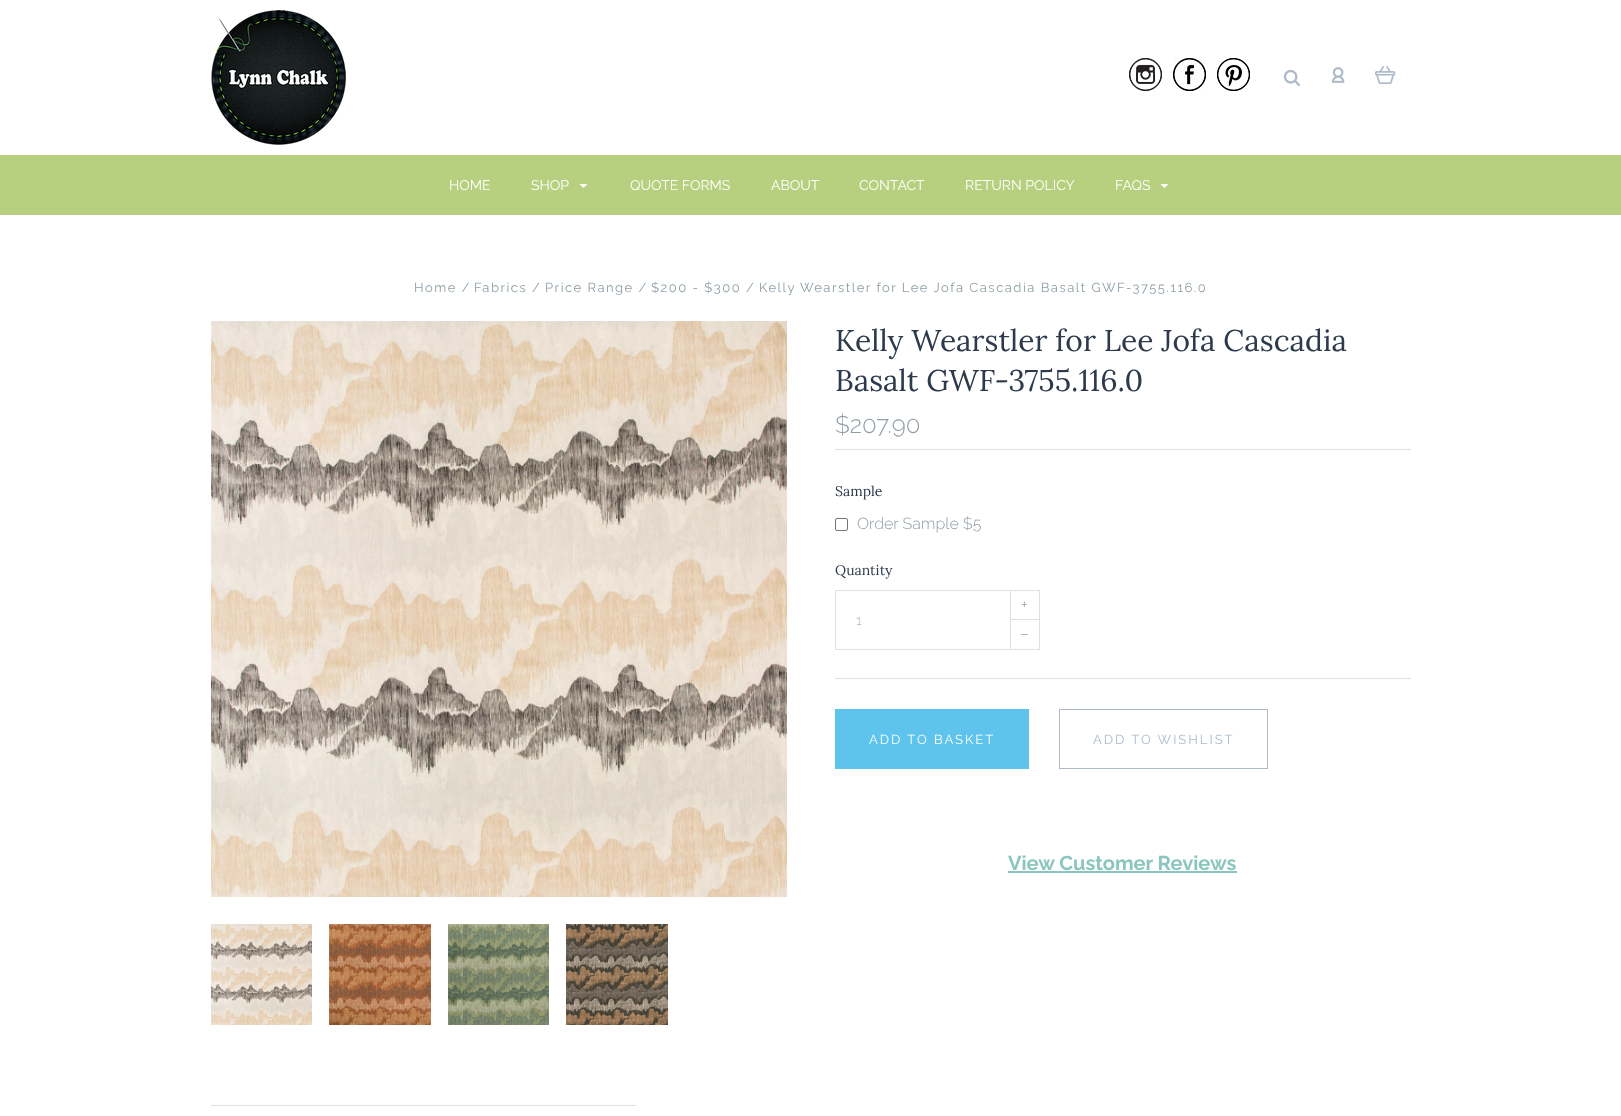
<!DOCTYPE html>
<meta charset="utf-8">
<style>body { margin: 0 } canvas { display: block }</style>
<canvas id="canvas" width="1621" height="1116"></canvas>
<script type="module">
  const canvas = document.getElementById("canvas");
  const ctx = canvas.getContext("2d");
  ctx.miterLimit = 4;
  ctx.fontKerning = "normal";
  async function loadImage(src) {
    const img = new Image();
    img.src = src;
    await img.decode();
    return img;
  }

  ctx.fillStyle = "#ffffff";
  ctx.fillRect(0, 0, 1621, 1116);
  ctx.drawImage(await loadImage("img1.png"), 211, 10, 135, 135);
  ctx.drawImage(await loadImage("img2.png"), 1129, 58, 33, 33);
  ctx.drawImage(await loadImage("img3.png"), 1173, 58, 33, 33);
  ctx.drawImage(await loadImage("img4.png"), 1217, 58, 33, 33);
  ctx.drawImage(await loadImage("img5.png"), 1283, 69, 17, 17);
  ctx.drawImage(await loadImage("img6.png"), 1331, 67, 14, 16);
  ctx.drawImage(await loadImage("img7.png"), 1375, 66, 21, 18);
  ctx.fillStyle = "#b7d07f";
  ctx.fillRect(0, 155, 1621, 60);
  ctx.font = "14px Raleway";
  ctx.fillStyle = "#ffffff";
  ctx.fillText("HOME", 449, 190);
  ctx.fillText("SHOP", 531, 190);
  ctx.beginPath();
  ctx.moveTo(579.5, 184);
  ctx.lineTo(587.5, 184);
  ctx.lineTo(583.5, 188);
  ctx.closePath();
  ctx.fill();
  ctx.fillText("QUOTE FORMS", 630, 190);
  ctx.fillText("ABOUT", 771, 190);
  ctx.fillText("CONTACT", 859, 190);
  ctx.fillText("RETURN POLICY", 965, 190);
  ctx.fillText("FAQS", 1115, 190);
  ctx.beginPath();
  ctx.moveTo(1160.5, 184);
  ctx.lineTo(1168.5, 184);
  ctx.lineTo(1164.5, 188);
  ctx.closePath();
  ctx.fill();
  ctx.letterSpacing = "1.5px";
  ctx.font = "13px Raleway";
  ctx.fillStyle = "#8f9ea5";
  ctx.fillText("Home /", 414, 292);
  ctx.fillText("Fabrics /", 474, 292);
  ctx.fillText("Price Range /", 545, 292);
  ctx.fillText("$200 - $300 /", 651, 292);
  ctx.fillText("Kelly Wearstler for Lee Jofa Cascadia Basalt GWF-3755.116.0", 759, 292);
  ctx.drawImage(await loadImage("img8.png"), 211, 321, 576, 576);
  ctx.drawImage(await loadImage("img9.png"), 211, 924, 101, 101);
  ctx.drawImage(await loadImage("img10.png"), 329, 924, 102, 101);
  ctx.drawImage(await loadImage("img11.png"), 448, 924, 101, 101);
  ctx.drawImage(await loadImage("img12.png"), 566, 924, 102, 101);
  ctx.letterSpacing = "0px";
  ctx.font = "30px Lora";
  ctx.fillStyle = "#2c3a4c";
  ctx.fillText("Kelly Wearstler for Lee Jofa Cascadia", 835, 351);
  ctx.fillText("Basalt GWF-3755.116.0", 835, 391);
  ctx.font = "300 24px Raleway";
  ctx.fillStyle = "#8f9ea5";
  ctx.fillText("$207.90", 835, 433);
  ctx.fillStyle = "#dce1e7";
  ctx.fillRect(835, 449, 576, 1);
  ctx.font = "14px Lora";
  ctx.fillStyle = "#2c3a4c";
  ctx.fillText("Sample", 835, 496);
  ctx.beginPath();
  ctx.roundRect(835.5, 518.5, 12, 12, 1.5);
  ctx.strokeStyle = "#767676";
  ctx.stroke();
  ctx.font = "300 16px Raleway";
  ctx.fillStyle = "#8f9ea5";
  ctx.fillText("Order Sample $5", 857, 529);
  ctx.font = "14px Lora";
  ctx.fillStyle = "#2c3a4c";
  ctx.fillText("Quantity", 835, 575);
  ctx.strokeStyle = "#dce1e7";
  ctx.strokeRect(1010.5, 590.5, 29, 29);
  ctx.font = "300 16px Raleway";
  ctx.fillStyle = "#8f9ea5";
  ctx.fillText("+", 1021, 610);
  ctx.fillStyle = "#dce1e7";
  ctx.fillRect(835, 590, 175, 1);
  ctx.fillRect(835, 649, 175, 1);
  ctx.fillRect(835, 590, 1, 60);
  ctx.font = "300 14px Raleway";
  ctx.fillStyle = "#adb9c7";
  ctx.fillText("1", 856, 625);
  ctx.fillStyle = "#dce1e7";
  ctx.fillRect(1039, 620, 1, 30);
  ctx.fillRect(1010, 649, 30, 1);
  ctx.fillRect(1010, 620, 1, 30);
  ctx.font = "300 16px Raleway";
  ctx.fillStyle = "#8f9ea5";
  ctx.fillText("–", 1020, 639);
  ctx.fillStyle = "#dce1e7";
  ctx.fillRect(835, 678, 576, 1);
  ctx.fillStyle = "#5ec4ed";
  ctx.fillRect(835, 709, 194, 60);
  ctx.letterSpacing = "2px";
  ctx.font = "13px Raleway";
  ctx.fillStyle = "#ffffff";
  ctx.fillText("ADD TO BASKET", 869, 744);
  ctx.strokeStyle = "#adb9c7";
  ctx.strokeRect(1059.5, 709.5, 208, 59);
  ctx.fillStyle = "#adb9c7";
  ctx.fillText("ADD TO WISHLIST", 1093, 744);
  ctx.letterSpacing = "0px";
  ctx.font = "bold 20px Raleway";
  ctx.fillStyle = "#8ac5bf";
  ctx.fillText("View Customer Reviews", 1008, 870);
  ctx.fillRect(1008, 871, 229, 2);
  ctx.fillStyle = "#dce1e7";
  ctx.fillRect(211, 1105, 425, 1);
</script>
